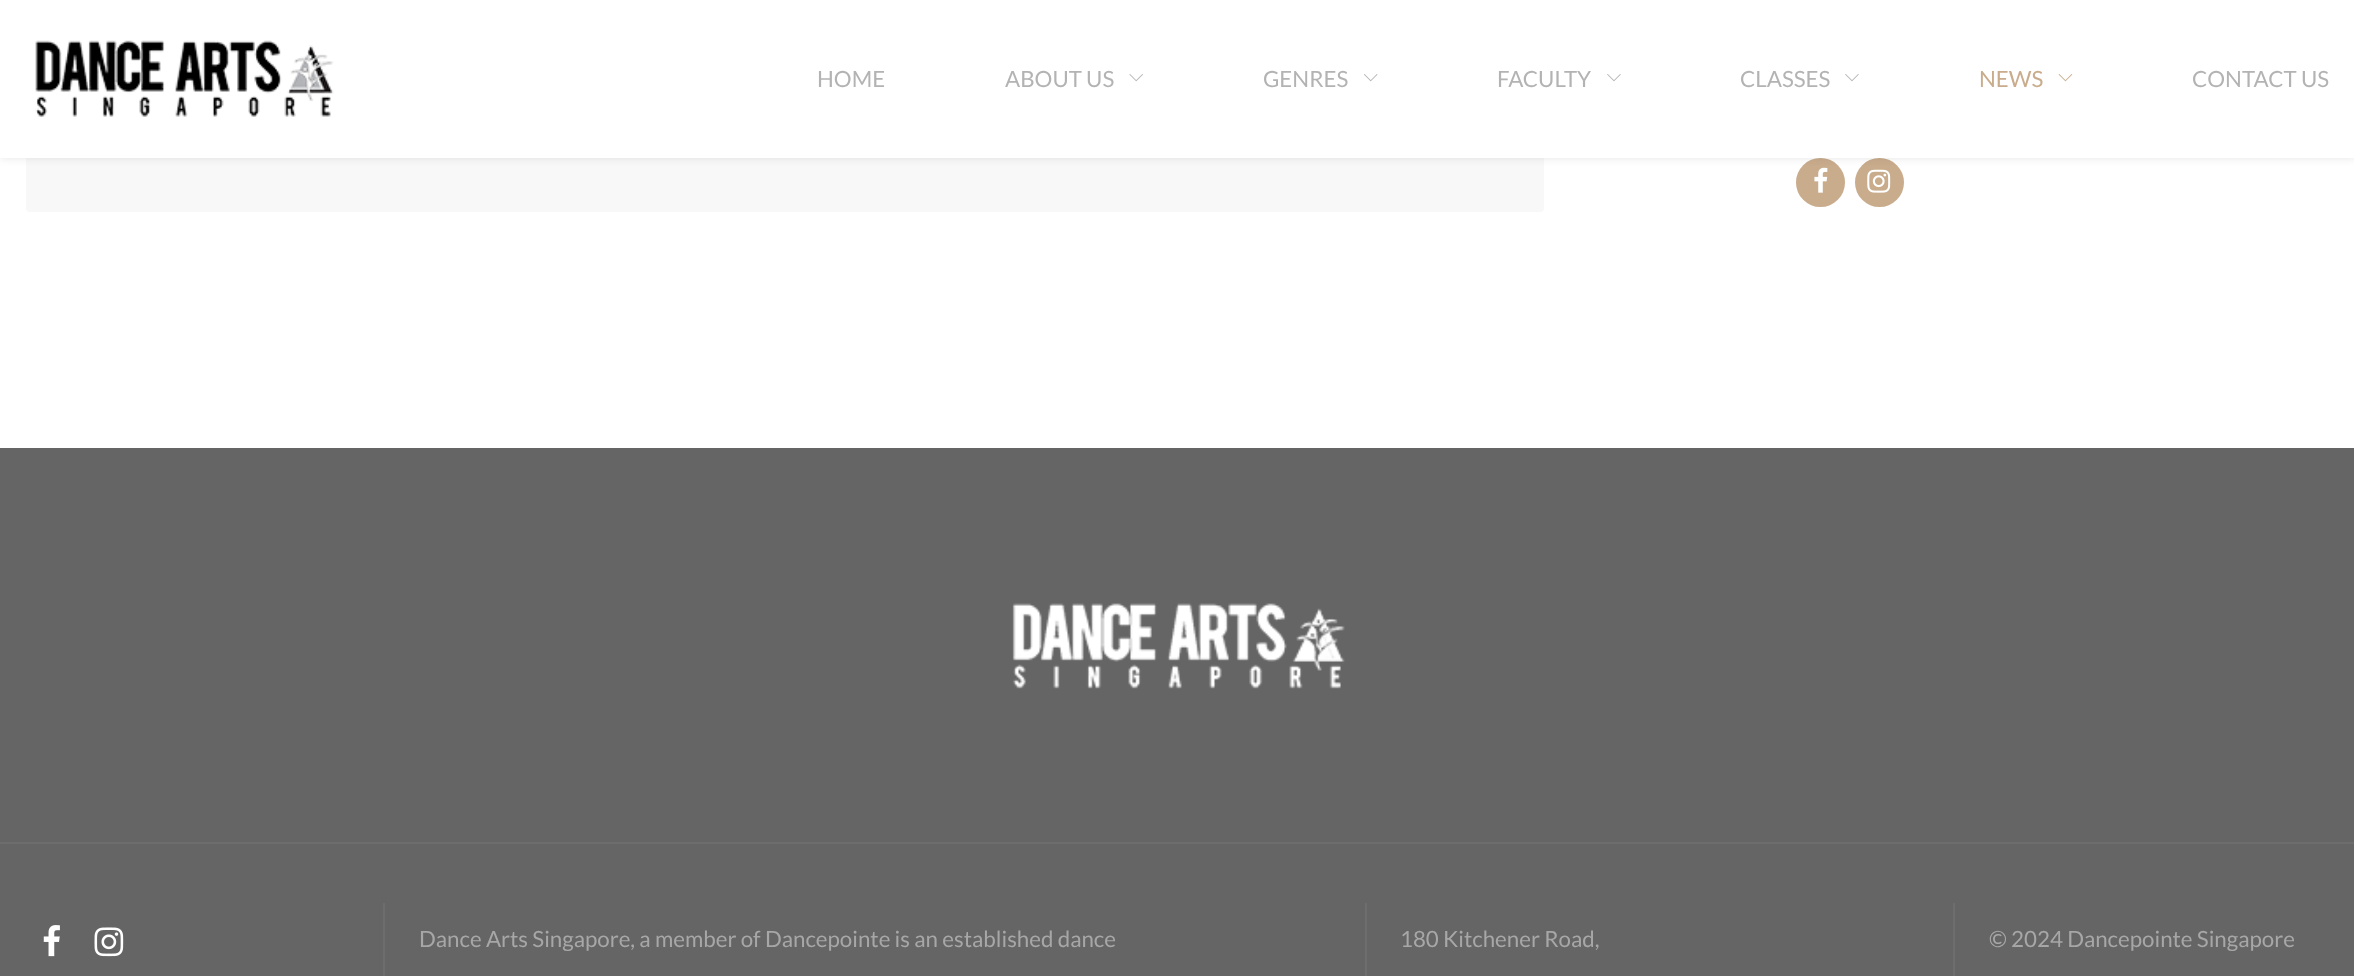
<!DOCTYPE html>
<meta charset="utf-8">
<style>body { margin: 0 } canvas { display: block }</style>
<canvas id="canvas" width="2354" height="976"></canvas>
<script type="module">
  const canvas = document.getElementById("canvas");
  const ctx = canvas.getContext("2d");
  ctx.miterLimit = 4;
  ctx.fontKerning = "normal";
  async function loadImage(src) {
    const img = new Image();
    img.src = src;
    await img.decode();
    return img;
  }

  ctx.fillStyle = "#ffffff";
  ctx.fillRect(0, 0, 2354, 976);
  ctx.fillStyle = "#f8f8f8";
  ctx.beginPath();
  ctx.roundRect(26, -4, 1518, 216, 4);
  ctx.fill();
  ctx.fillStyle = "#c9ac8c";
  ctx.beginPath();
  ctx.arc(1820.5, 182.5, 24.5, 0, Math.PI * 2);
  ctx.fill();
  ctx.drawImage(await loadImage("img1.png"), 1814, 167, 14, 26);
  ctx.beginPath();
  ctx.arc(1879.5, 182.5, 24.5, 0, Math.PI * 2);
  ctx.fill();
  ctx.drawImage(await loadImage("img2.png"), 1867, 169, 24, 24);
  ctx.fillStyle = "rgba(0, 0, 0, 0.1)";
  ctx.filter = "blur(4.5px)";
  ctx.beginPath();
  ctx.rect(0, 0, 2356, 158);
  ctx.fill();
  ctx.filter = "none";
  ctx.fillStyle = "#ffffff";
  ctx.fillRect(0, 0, 2354, 158);
  ctx.drawImage(await loadImage("img3.png"), 35, 40, 299, 77);
  ctx.font = "22.3px Lato";
  ctx.fillStyle = "#b3b3b3";
  ctx.fillText("HOME", 817, 87);
  ctx.fillText("ABOUT US", 1005, 87);
  ctx.drawImage(await loadImage("img4.png"), 1129, 74, 14, 8);
  ctx.fillText("GENRES", 1263, 87);
  ctx.drawImage(await loadImage("img5.png"), 1364, 74, 14, 8);
  ctx.fillText("FACULTY", 1497, 87);
  ctx.drawImage(await loadImage("img6.png"), 1607, 74, 14, 8);
  ctx.fillText("CLASSES", 1740, 87);
  ctx.drawImage(await loadImage("img6.png"), 1845, 74, 14, 8);
  ctx.fillStyle = "#c9ac8c";
  ctx.fillText("NEWS", 1979, 87);
  ctx.drawImage(await loadImage("img7.png"), 2058, 74, 15, 8);
  ctx.fillStyle = "#b3b3b3";
  ctx.fillText("CONTACT US", 2192, 87);
  ctx.fillStyle = "#656565";
  ctx.fillRect(0, 448, 2354, 528);
  ctx.drawImage(await loadImage("img8.png"), 1012, 603, 333, 86);
  ctx.fillStyle = "#6d6d6d";
  ctx.fillRect(0, 842, 2354, 2);
  ctx.drawImage(await loadImage("img9.png"), 43, 925, 17, 32);
  ctx.drawImage(await loadImage("img10.png"), 94, 927, 30, 30);
  ctx.fillRect(383, 903, 2, 73);
  ctx.fillStyle = "#a7a7a7";
  ctx.fillText("Dance Arts Singapore, a member of Dancepointe is an established dance", 419, 947);
  ctx.fillStyle = "#6d6d6d";
  ctx.fillRect(1365, 903, 2, 73);
  ctx.fillStyle = "#a7a7a7";
  ctx.fillText("180 Kitchener Road,", 1400, 947);
  ctx.fillStyle = "#6d6d6d";
  ctx.fillRect(1953, 903, 2, 73);
  ctx.fillStyle = "#a7a7a7";
  ctx.fillText("© 2024 Dancepointe Singapore", 1989, 947);
</script>
